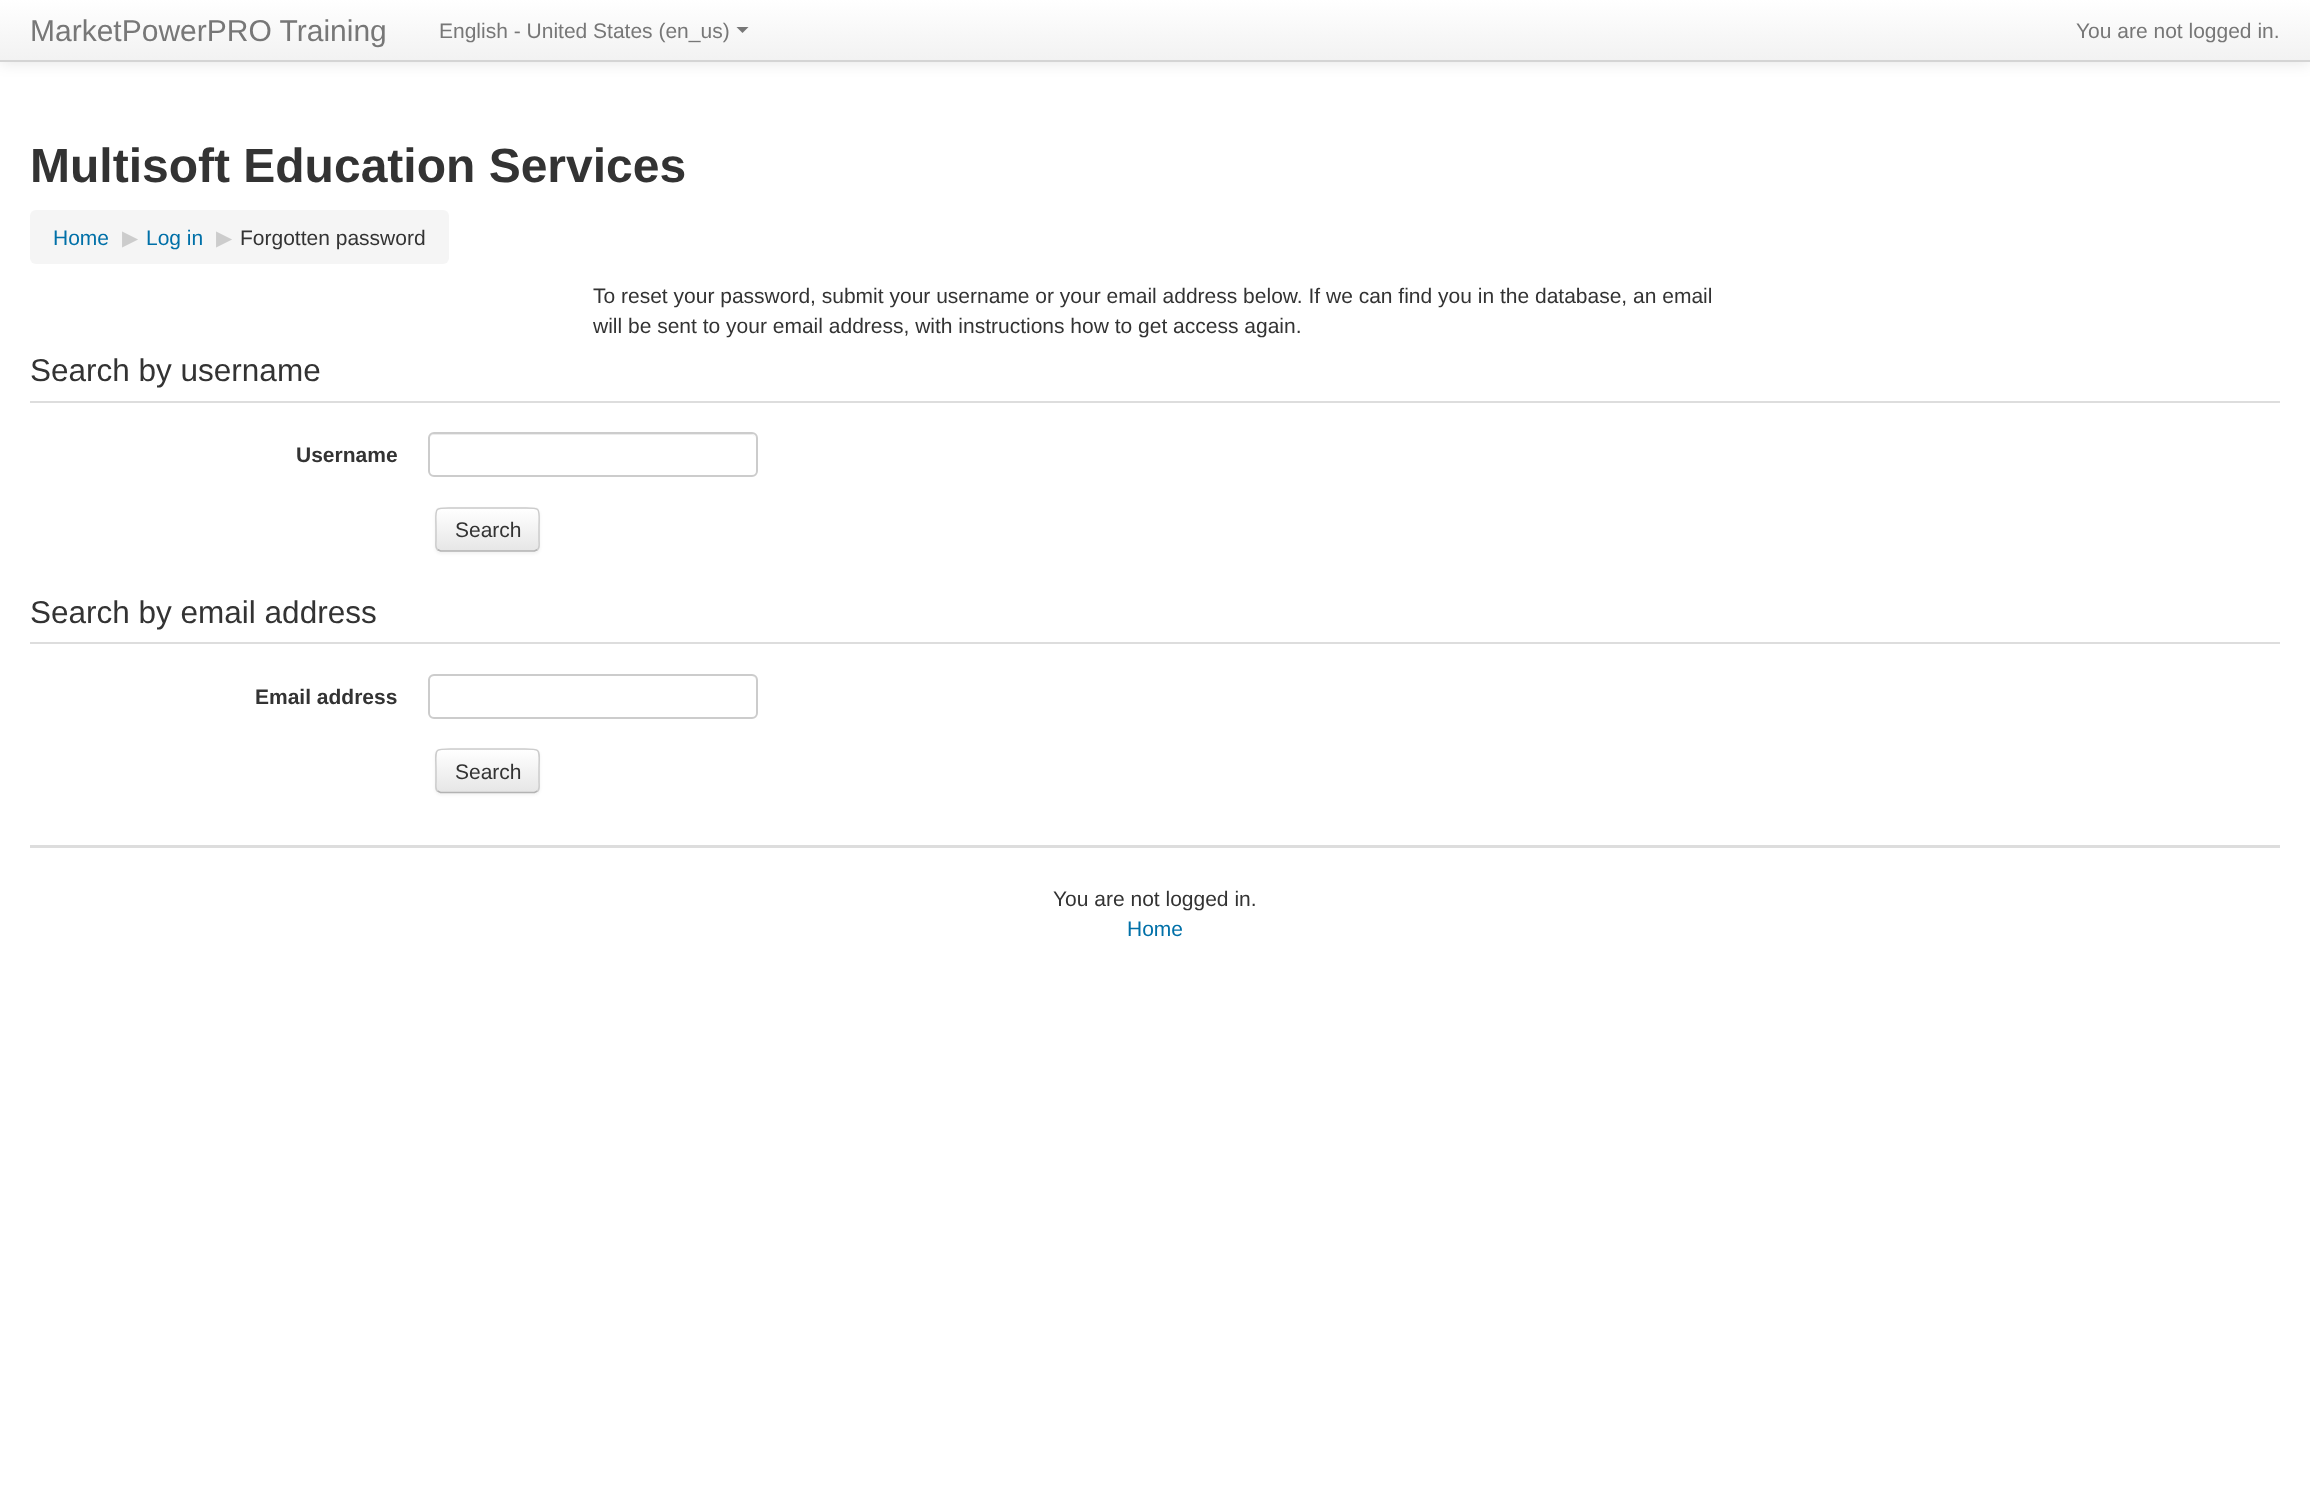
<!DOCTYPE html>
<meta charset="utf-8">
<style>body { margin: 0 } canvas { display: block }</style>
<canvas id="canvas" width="2310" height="1489"></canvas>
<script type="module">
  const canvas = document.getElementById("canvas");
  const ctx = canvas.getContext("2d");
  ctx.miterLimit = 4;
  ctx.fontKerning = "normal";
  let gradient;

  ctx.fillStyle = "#ffffff";
  ctx.fillRect(0, 0, 2310, 1489);
  ctx.fillStyle = "rgba(0, 0, 0, 0.1)";
  ctx.filter = "blur(7.5px)";
  ctx.beginPath();
  ctx.rect(0, 2, 2310, 61);
  ctx.fill();
  ctx.filter = "none";
  gradient = ctx.createLinearGradient(1155, 0, 1155, 60);
  gradient.addColorStop(0, "#ffffff");
  gradient.addColorStop(1, "#f2f2f2");
  ctx.fillStyle = gradient;
  ctx.fillRect(0, 0, 2310, 60);
  ctx.fillStyle = "#d4d4d4";
  ctx.fillRect(0, 60, 2310, 2);
  ctx.font = "30px Liberation Sans";
  ctx.fillStyle = "#777777";
  ctx.fillText("MarketPowerPRO Training", 30, 41);
  ctx.font = "21px Liberation Sans";
  ctx.fillText("English - United States (en_us)", 439, 38);
  ctx.beginPath();
  ctx.moveTo(736.5, 27);
  ctx.lineTo(748.5, 27);
  ctx.lineTo(742.5, 33);
  ctx.closePath();
  ctx.fill();
  ctx.fillText("You are not logged in.", 2076, 38);
  ctx.font = "bold 48px Liberation Sans";
  ctx.fillStyle = "#333333";
  ctx.fillText("Multisoft Education Services", 30, 182);
  ctx.fillStyle = "#f5f5f5";
  ctx.beginPath();
  ctx.roundRect(30, 210, 419, 54, 6);
  ctx.fill();
  ctx.font = "21px Liberation Sans";
  ctx.fillStyle = "#0070a8";
  ctx.fillText("Home", 53, 245);
  ctx.font = "21px DejaVu Sans";
  ctx.fillStyle = "#cccccc";
  ctx.fillText("▶︎", 122, 245);
  ctx.font = "21px Liberation Sans";
  ctx.fillStyle = "#0070a8";
  ctx.fillText("Log in", 146, 245);
  ctx.font = "21px DejaVu Sans";
  ctx.fillStyle = "#cccccc";
  ctx.fillText("▶︎", 216, 245);
  ctx.font = "21px Liberation Sans";
  ctx.fillStyle = "#333333";
  ctx.fillText("Forgotten password", 240, 245);
  ctx.fillText("To reset your password, submit your username or your email address below. If we can find you in the database, an email", 593, 303);
  ctx.fillText("will be sent to your email address, with instructions how to get access again.", 593, 333);
  ctx.fillStyle = "#dddddd";
  ctx.fillRect(30, 401, 2250, 2);
  ctx.font = "31.5px Liberation Sans";
  ctx.fillStyle = "#333333";
  ctx.fillText("Search by username", 30, 381);
  ctx.font = "bold 21px Liberation Sans";
  ctx.fillText("Username", 296, 462);
  ctx.fillStyle = "#ececec";
  ctx.beginPath();
  ctx.moveTo(434, 435);
  ctx.lineTo(752, 435);
  ctx.bezierCurveTo(754, 435, 756, 437, 756, 440);
  ctx.bezierCurveTo(756, 437, 754, 434, 751, 434);
  ctx.lineTo(434, 434);
  ctx.bezierCurveTo(431, 434, 429, 437, 429, 440);
  ctx.bezierCurveTo(429, 437, 431, 435, 434, 435);
  ctx.closePath();
  ctx.fill();
  ctx.beginPath();
  ctx.roundRect(429, 433, 328, 43, 5);
  ctx.strokeStyle = "#cccccc";
  ctx.lineWidth = 2;
  ctx.stroke();
  ctx.fillStyle = "rgba(0, 0, 0, 0.05)";
  ctx.filter = "blur(1.5px)";
  ctx.beginPath();
  ctx.roundRect(435, 509, 105, 45, 6);
  ctx.fill();
  ctx.filter = "none";
  ctx.fillStyle = "#f5f5f5";
  ctx.beginPath();
  ctx.roundRect(435, 507, 105, 45, 6);
  ctx.fill();
  ctx.save();
  ctx.beginPath();
  ctx.roundRect(435, 507, 105, 45, 6);
  ctx.clip();
  gradient = ctx.createLinearGradient(488, 509, 488, 551);
  gradient.addColorStop(0, "#ffffff");
  gradient.addColorStop(1, "#e6e6e6");
  ctx.fillStyle = gradient;
  ctx.fillRect(435, 509, 105, 42);
  ctx.restore();
  ctx.fillStyle = "rgba(255, 255, 255, 0.2)";
  ctx.beginPath();
  ctx.moveTo(441, 510);
  ctx.lineTo(534, 510);
  ctx.bezierCurveTo(539, 510, 538, 517, 538, 520);
  ctx.lineTo(538, 549);
  ctx.bezierCurveTo(539, 548, 539, 547, 539, 546);
  ctx.lineTo(539, 514);
  ctx.bezierCurveTo(539, 511, 537, 509, 534, 509);
  ctx.lineTo(442, 509);
  ctx.bezierCurveTo(440, 509, 439, 510, 438, 511);
  ctx.closePath();
  ctx.fill();
  ctx.beginPath();
  ctx.moveTo(537.5, 549.5);
  ctx.lineTo(534.5, 551);
  ctx.lineTo(440.5, 551);
  ctx.lineTo(437.5, 549.5);
  ctx.strokeStyle = "#b3b3b3";
  ctx.lineWidth = 1.5;
  ctx.stroke();
  ctx.beginPath();
  ctx.moveTo(437.5, 549.5);
  ctx.bezierCurveTo(435, 547.5, 436, 543.5, 436, 540.5);
  ctx.lineTo(436, 529.5);
  ctx.bezierCurveTo(436, 505.5, 432, 508, 456.5, 508);
  ctx.lineTo(518.5, 508);
  ctx.bezierCurveTo(543, 508, 539, 505.5, 539, 529.5);
  ctx.lineTo(539, 540.5);
  ctx.bezierCurveTo(539, 543.5, 540, 547.5, 537.5, 549.5);
  ctx.strokeStyle = "#cccccc";
  ctx.stroke();
  ctx.font = "21px Liberation Sans";
  ctx.fillStyle = "#333333";
  ctx.fillText("Search", 455, 537);
  ctx.fillStyle = "#dddddd";
  ctx.fillRect(30, 642, 2250, 2);
  ctx.font = "31.5px Liberation Sans";
  ctx.fillStyle = "#333333";
  ctx.fillText("Search by email address", 30, 623);
  ctx.font = "bold 21px Liberation Sans";
  ctx.fillText("Email address", 255, 704);
  ctx.fillStyle = "#ececec";
  ctx.beginPath();
  ctx.moveTo(434, 676);
  ctx.lineTo(752, 676);
  ctx.bezierCurveTo(754, 676, 756, 679, 756, 681);
  ctx.bezierCurveTo(756, 678, 754, 675, 751, 675);
  ctx.lineTo(434, 675);
  ctx.bezierCurveTo(431, 675, 429, 678, 429, 681);
  ctx.bezierCurveTo(429, 679, 431, 676, 434, 676);
  ctx.closePath();
  ctx.fill();
  ctx.beginPath();
  ctx.roundRect(429, 675, 328, 43, 5);
  ctx.lineWidth = 2;
  ctx.stroke();
  ctx.fillStyle = "rgba(0, 0, 0, 0.05)";
  ctx.filter = "blur(1.5px)";
  ctx.beginPath();
  ctx.roundRect(435, 750, 105, 45, 6);
  ctx.fill();
  ctx.filter = "none";
  ctx.fillStyle = "#f5f5f5";
  ctx.beginPath();
  ctx.roundRect(435, 749, 105, 45, 6);
  ctx.fill();
  ctx.save();
  ctx.beginPath();
  ctx.roundRect(435, 749, 105, 45, 6);
  ctx.clip();
  gradient = ctx.createLinearGradient(488, 750, 488, 792);
  gradient.addColorStop(0, "#ffffff");
  gradient.addColorStop(1, "#e6e6e6");
  ctx.fillStyle = gradient;
  ctx.fillRect(435, 750, 105, 42);
  ctx.restore();
  ctx.fillStyle = "rgba(255, 255, 255, 0.2)";
  ctx.beginPath();
  ctx.moveTo(441, 752);
  ctx.lineTo(534, 752);
  ctx.bezierCurveTo(539, 752, 538, 759, 538, 762);
  ctx.lineTo(538, 790);
  ctx.bezierCurveTo(539, 789, 539, 788, 539, 787);
  ctx.lineTo(539, 755);
  ctx.bezierCurveTo(539, 752, 537, 750, 534, 750);
  ctx.lineTo(442, 750);
  ctx.bezierCurveTo(440, 750, 438, 752, 437, 754);
  ctx.bezierCurveTo(438, 753, 440, 752, 441, 752);
  ctx.closePath();
  ctx.fill();
  ctx.beginPath();
  ctx.moveTo(537.5, 791);
  ctx.lineTo(534.5, 792.5);
  ctx.lineTo(440.5, 792.5);
  ctx.lineTo(437.5, 791);
  ctx.strokeStyle = "#b3b3b3";
  ctx.lineWidth = 1.5;
  ctx.stroke();
  ctx.beginPath();
  ctx.moveTo(437.5, 791);
  ctx.bezierCurveTo(435, 789, 436, 785, 436, 782);
  ctx.lineTo(436, 771);
  ctx.bezierCurveTo(436, 747, 432, 749, 456.5, 749);
  ctx.lineTo(518.5, 749);
  ctx.bezierCurveTo(543, 749, 539, 747, 539, 771);
  ctx.lineTo(539, 782);
  ctx.bezierCurveTo(539, 785, 540, 789, 537.5, 791);
  ctx.strokeStyle = "#cccccc";
  ctx.stroke();
  ctx.font = "21px Liberation Sans";
  ctx.fillStyle = "#333333";
  ctx.fillText("Search", 455, 779);
  ctx.fillStyle = "#dddddd";
  ctx.fillRect(30, 845, 2250, 3);
  ctx.fillStyle = "#333333";
  ctx.fillText("You are not logged in.", 1053, 906);
  ctx.fillStyle = "#0070a8";
  ctx.fillText("Home", 1127, 936);
</script>
